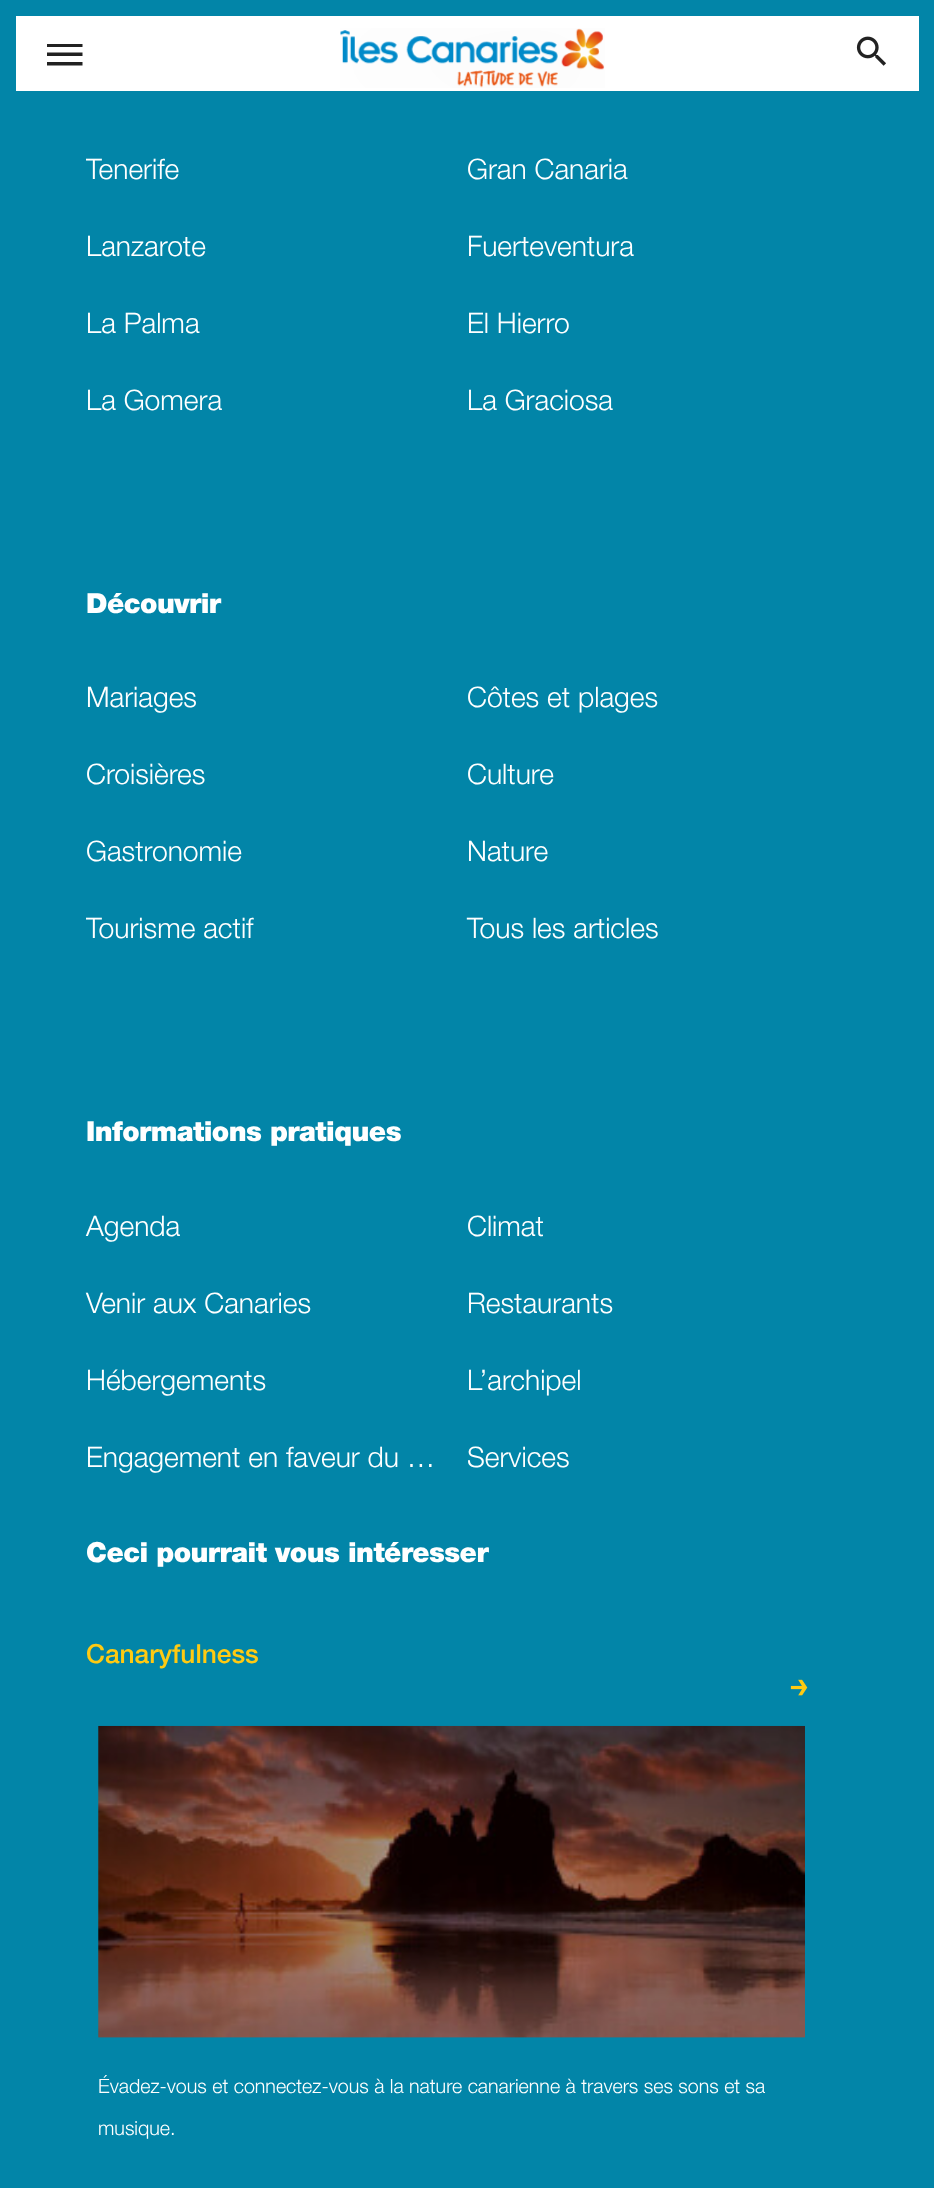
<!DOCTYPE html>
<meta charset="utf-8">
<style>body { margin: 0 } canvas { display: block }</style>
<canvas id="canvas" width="934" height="2188"></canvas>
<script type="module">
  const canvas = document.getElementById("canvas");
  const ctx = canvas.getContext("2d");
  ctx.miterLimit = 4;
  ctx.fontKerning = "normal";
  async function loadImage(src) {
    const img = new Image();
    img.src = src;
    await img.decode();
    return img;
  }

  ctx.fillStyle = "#0285a8";
  ctx.fillRect(0, 0, 934, 2188);
  ctx.fillStyle = "#ffffff";
  ctx.fillRect(16, 16, 903, 75);
  ctx.fillStyle = "#222222";
  ctx.beginPath();
  ctx.moveTo(47, 44);
  ctx.lineTo(82.5, 44);
  ctx.lineTo(82.5, 47);
  ctx.lineTo(47, 47);
  ctx.closePath();
  ctx.moveTo(47, 62);
  ctx.lineTo(82.5, 62);
  ctx.lineTo(82.5, 65.5);
  ctx.lineTo(47, 65.5);
  ctx.closePath();
  ctx.moveTo(47, 52.5);
  ctx.lineTo(82.5, 52.5);
  ctx.lineTo(82.5, 56);
  ctx.lineTo(47, 56);
  ctx.closePath();
  ctx.fill();
  ctx.drawImage(await loadImage("img1.png"), 340, 28, 265, 60);
  ctx.drawImage(await loadImage("img2.png"), 856, 36, 30, 30);
  ctx.save();
  ctx.beginPath();
  ctx.rect(86, 156, 381, 35);
  ctx.clip();
  ctx.font = "300 28.25px Helvetica Neue";
  ctx.fillStyle = "#ffffff";
  ctx.fillText("Tenerife", 86, 179);
  ctx.restore();
  ctx.font = "300 28.25px Helvetica Neue";
  ctx.fillStyle = "#ffffff";
  ctx.fillText("Gran Canaria", 467, 179);
  ctx.fillText("Lanzarote", 86, 256);
  ctx.fillText("Fuerteventura", 467, 256);
  ctx.fillText("La Palma", 86, 333);
  ctx.fillText("El Hierro", 467, 333);
  ctx.fillText("La Gomera", 86, 410);
  ctx.fillText("La Graciosa", 467, 410);
  ctx.letterSpacing = "-0.55px";
  ctx.font = "900 27.6px Helvetica Neue";
  ctx.fillText("Découvrir", 86, 613);
  ctx.letterSpacing = "0px";
  ctx.font = "300 28.25px Helvetica Neue";
  ctx.fillText("Mariages", 86, 707);
  ctx.fillText("Côtes et plages", 467, 707);
  ctx.fillText("Croisières", 86, 784);
  ctx.fillText("Culture", 467, 784);
  ctx.fillText("Gastronomie", 86, 861);
  ctx.fillText("Nature", 467, 861);
  ctx.save();
  ctx.beginPath();
  ctx.rect(86, 915, 381, 35);
  ctx.clip();
  ctx.fillText("Tourisme actif", 86, 938);
  ctx.restore();
  ctx.fillText("Tous les articles", 467, 938);
  ctx.letterSpacing = "-0.55px";
  ctx.font = "900 27.6px Helvetica Neue";
  ctx.fillText("Informations pratiques", 86, 1141);
  ctx.letterSpacing = "0px";
  ctx.font = "300 28.25px Helvetica Neue";
  ctx.fillText("Agenda", 86, 1236);
  ctx.fillText("Climat", 467, 1236);
  ctx.fillText("Venir aux Canaries", 86, 1313);
  ctx.fillText("Restaurants", 467, 1313);
  ctx.fillText("Hébergements", 86, 1390);
  ctx.fillText("L’archipel", 467, 1390);
  ctx.fillText("Engagement en faveur du …", 86, 1467);
  ctx.fillText("Services", 467, 1467);
  ctx.letterSpacing = "-0.55px";
  ctx.font = "900 27.6px Helvetica Neue";
  ctx.fillText("Ceci pourrait vous intéresser", 86, 1562);
  ctx.letterSpacing = "0px";
  ctx.font = "500 26.25px Helvetica Neue";
  ctx.fillStyle = "#ffca12";
  ctx.fillText("Canaryfulness", 86, 1663);
  ctx.drawImage(await loadImage("img3.png"), 790, 1679, 18, 17);
  ctx.drawImage(await loadImage("img4.png"), 98, 1725, 707, 313);
  ctx.font = "300 19.65px Helvetica Neue";
  ctx.fillStyle = "#ffffff";
  ctx.fillText("Évadez-vous et connectez-vous à la nature canarienne à travers ses sons et sa", 98, 2093);
  ctx.fillText("musique.", 98, 2135);
</script>
